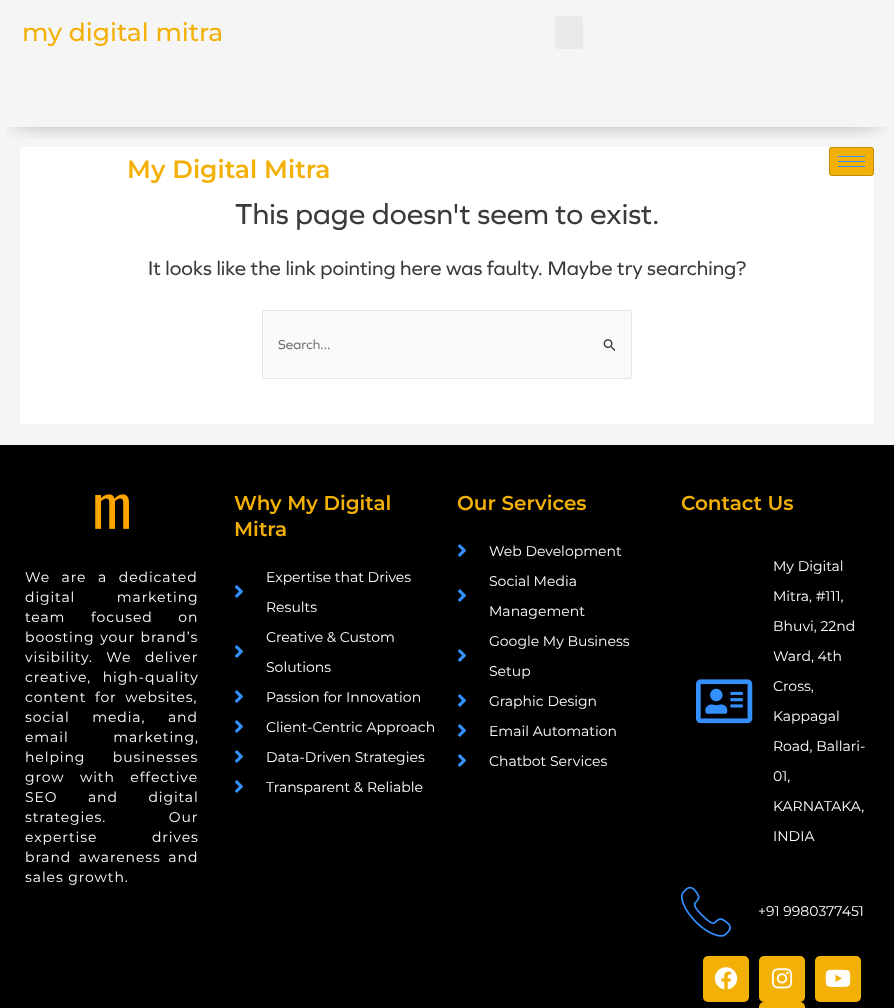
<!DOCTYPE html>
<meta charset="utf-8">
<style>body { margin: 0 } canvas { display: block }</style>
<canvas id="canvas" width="894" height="1008"></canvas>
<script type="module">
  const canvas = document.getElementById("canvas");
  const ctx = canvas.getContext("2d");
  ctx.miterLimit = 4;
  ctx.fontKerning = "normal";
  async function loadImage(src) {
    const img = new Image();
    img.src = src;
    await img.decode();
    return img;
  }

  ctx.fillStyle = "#f5f5f5";
  ctx.fillRect(0, 0, 894, 1008);
  ctx.fillStyle = "#ffffff";
  ctx.fillRect(20, 147, 854, 277);
  ctx.fillStyle = "#f3b107";
  ctx.beginPath();
  ctx.roundRect(829, 147, 45, 29, 3);
  ctx.fill();
  ctx.beginPath();
  ctx.roundRect(829.5, 147.5, 44, 28, 2.5);
  ctx.strokeStyle = "rgba(0, 0, 0, 0.2)";
  ctx.stroke();
  ctx.save();
  ctx.beginPath();
  ctx.rect(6, 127, 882, 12);
  ctx.clip();
  ctx.fillStyle = "rgba(0, 0, 0, 0.5)";
  ctx.filter = "blur(11px)";
  ctx.beginPath();
  ctx.rect(17, 27, 860, 93);
  ctx.fill();
  ctx.filter = "none";
  ctx.restore();
  ctx.font = "500 25px Montserrat";
  ctx.fillText("my digital mitra", 22, 41);
  ctx.fillStyle = "#e9e9e9";
  ctx.beginPath();
  ctx.roundRect(555, 16, 28, 33, 3);
  ctx.fill();
  ctx.font = "600 25px Montserrat";
  ctx.fillStyle = "#f3b107";
  ctx.fillText("My Digital Mitra", 127, 178);
  ctx.fillStyle = "#3490ff";
  ctx.fillRect(838, 156, 27, 1);
  ctx.fillRect(838, 161, 27, 1);
  ctx.fillRect(838, 166, 27, 1);
  ctx.font = "30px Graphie";
  ctx.fillStyle = "#3a3a3a";
  ctx.fillText("This page doesn't seem to exist.", 235, 224);
  ctx.font = "20.5px Graphie";
  ctx.fillText("It looks like the link pointing here was faulty. Maybe try searching?", 148, 275);
  ctx.fillStyle = "#fafafa";
  ctx.beginPath();
  ctx.roundRect(262.5, 310.5, 369, 68, 1.5);
  ctx.fill();
  ctx.strokeStyle = "#e5e5e5";
  ctx.stroke();
  ctx.font = "13.5px Graphie";
  ctx.fillStyle = "#757575";
  ctx.fillText("Search...", 278, 349);
  ctx.drawImage(await loadImage("img1.png"), 603, 339, 12, 12);
  ctx.fillStyle = "#000000";
  ctx.fillRect(0, 445, 894, 563);
  ctx.drawImage(await loadImage("img2.png"), 95, 494, 34, 35);
  ctx.letterSpacing = "0.9px";
  ctx.wordSpacing = "7px";
  ctx.font = "14px Montserrat";
  ctx.fillStyle = "#ffffff";
  ctx.fillText("We are a dedicated", 25, 582);
  ctx.wordSpacing = "37px";
  ctx.fillText("digital marketing", 25, 602);
  ctx.wordSpacing = "21px";
  ctx.fillText("team focused on", 25, 622);
  ctx.wordSpacing = "1px";
  ctx.fillText("boosting your brand’s", 25, 642);
  ctx.wordSpacing = "9px";
  ctx.fillText("visibility. We deliver", 25, 662);
  ctx.wordSpacing = "7px";
  ctx.fillText("creative, high-quality", 25, 682);
  ctx.wordSpacing = "4px";
  ctx.fillText("content for websites,", 25, 702);
  ctx.wordSpacing = "18px";
  ctx.fillText("social media, and", 25, 722);
  ctx.wordSpacing = "40px";
  ctx.fillText("email marketing,", 25, 742);
  ctx.wordSpacing = "23px";
  ctx.fillText("helping businesses", 25, 762);
  ctx.wordSpacing = "11px";
  ctx.fillText("grow with effective", 25, 782);
  ctx.wordSpacing = "26px";
  ctx.fillText("SEO and digital", 25, 802);
  ctx.wordSpacing = "58px";
  ctx.fillText("strategies. Our", 25, 822);
  ctx.wordSpacing = "50px";
  ctx.fillText("expertise drives", 25, 842);
  ctx.wordSpacing = "3px";
  ctx.fillText("brand awareness and", 25, 862);
  ctx.wordSpacing = "0px";
  ctx.fillText("sales growth.", 25, 882);
  ctx.letterSpacing = "0px";
  ctx.font = "600 20px Montserrat";
  ctx.fillStyle = "#f3b107";
  ctx.fillText("Why My Digital", 234, 510);
  ctx.fillText("Mitra", 234, 536);
  ctx.drawImage(await loadImage("img3.png"), 235, 585, 8, 13);
  ctx.font = "14px Montserrat";
  ctx.fillStyle = "#ffffff";
  ctx.fillText("Expertise that Drives", 266, 582);
  ctx.fillText("Results", 266, 612);
  ctx.drawImage(await loadImage("img3.png"), 235, 645, 8, 13);
  ctx.fillText("Creative & Custom", 266, 642);
  ctx.fillText("Solutions", 266, 672);
  ctx.drawImage(await loadImage("img3.png"), 235, 690, 8, 13);
  ctx.fillText("Passion for Innovation", 266, 702);
  ctx.drawImage(await loadImage("img3.png"), 235, 720, 8, 13);
  ctx.fillText("Client-Centric Approach", 266, 732);
  ctx.drawImage(await loadImage("img3.png"), 235, 750, 8, 13);
  ctx.fillText("Data-Driven Strategies", 266, 762);
  ctx.drawImage(await loadImage("img3.png"), 235, 780, 8, 13);
  ctx.fillText("Transparent & Reliable", 266, 792);
  ctx.font = "600 20px Montserrat";
  ctx.fillStyle = "#f3b107";
  ctx.fillText("Our Services", 457, 510);
  ctx.drawImage(await loadImage("img3.png"), 458, 544, 8, 13);
  ctx.font = "14px Montserrat";
  ctx.fillStyle = "#ffffff";
  ctx.fillText("Web Development", 489, 556);
  ctx.drawImage(await loadImage("img3.png"), 458, 589, 8, 13);
  ctx.fillText("Social Media", 489, 586);
  ctx.fillText("Management", 489, 616);
  ctx.drawImage(await loadImage("img3.png"), 458, 649, 8, 13);
  ctx.fillText("Google My Business", 489, 646);
  ctx.fillText("Setup", 489, 676);
  ctx.drawImage(await loadImage("img3.png"), 458, 694, 8, 13);
  ctx.fillText("Graphic Design", 489, 706);
  ctx.drawImage(await loadImage("img3.png"), 458, 724, 8, 13);
  ctx.fillText("Email Automation", 489, 736);
  ctx.drawImage(await loadImage("img3.png"), 458, 754, 8, 13);
  ctx.fillText("Chatbot Services", 489, 766);
  ctx.font = "600 20px Montserrat";
  ctx.fillStyle = "#f3b107";
  ctx.fillText("Contact Us", 681, 510);
  ctx.drawImage(await loadImage("img4.png"), 696, 679, 57, 45);
  ctx.font = "14px Montserrat";
  ctx.fillStyle = "#ffffff";
  ctx.fillText("My Digital", 773, 571);
  ctx.fillText("Mitra, #111,", 773, 601);
  ctx.fillText("Bhuvi, 22nd", 773, 631);
  ctx.fillText("Ward, 4th", 773, 661);
  ctx.fillText("Cross,", 773, 691);
  ctx.fillText("Kappagal", 773, 721);
  ctx.fillText("Road, Ballari-", 773, 751);
  ctx.fillText("01,", 773, 781);
  ctx.fillText("KARNATAKA,", 773, 811);
  ctx.fillText("INDIA", 773, 841);
  ctx.drawImage(await loadImage("img5.png"), 681, 886, 50, 51);
  ctx.fillText("+91 9980377451", 758, 916);
  ctx.fillStyle = "#f3b107";
  ctx.beginPath();
  ctx.roundRect(703, 956, 46, 46, 5);
  ctx.fill();
  ctx.drawImage(await loadImage("img6.png"), 714, 967, 24, 23);
  ctx.beginPath();
  ctx.roundRect(759, 956, 46, 46, 5);
  ctx.fill();
  ctx.drawImage(await loadImage("img7.png"), 771, 968, 22, 21);
  ctx.beginPath();
  ctx.roundRect(815, 956, 46, 46, 5);
  ctx.fill();
  ctx.drawImage(await loadImage("img8.png"), 825, 969, 26, 18);
  ctx.beginPath();
  ctx.roundRect(759, 1002, 46, 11, 5);
  ctx.fill();
</script>
